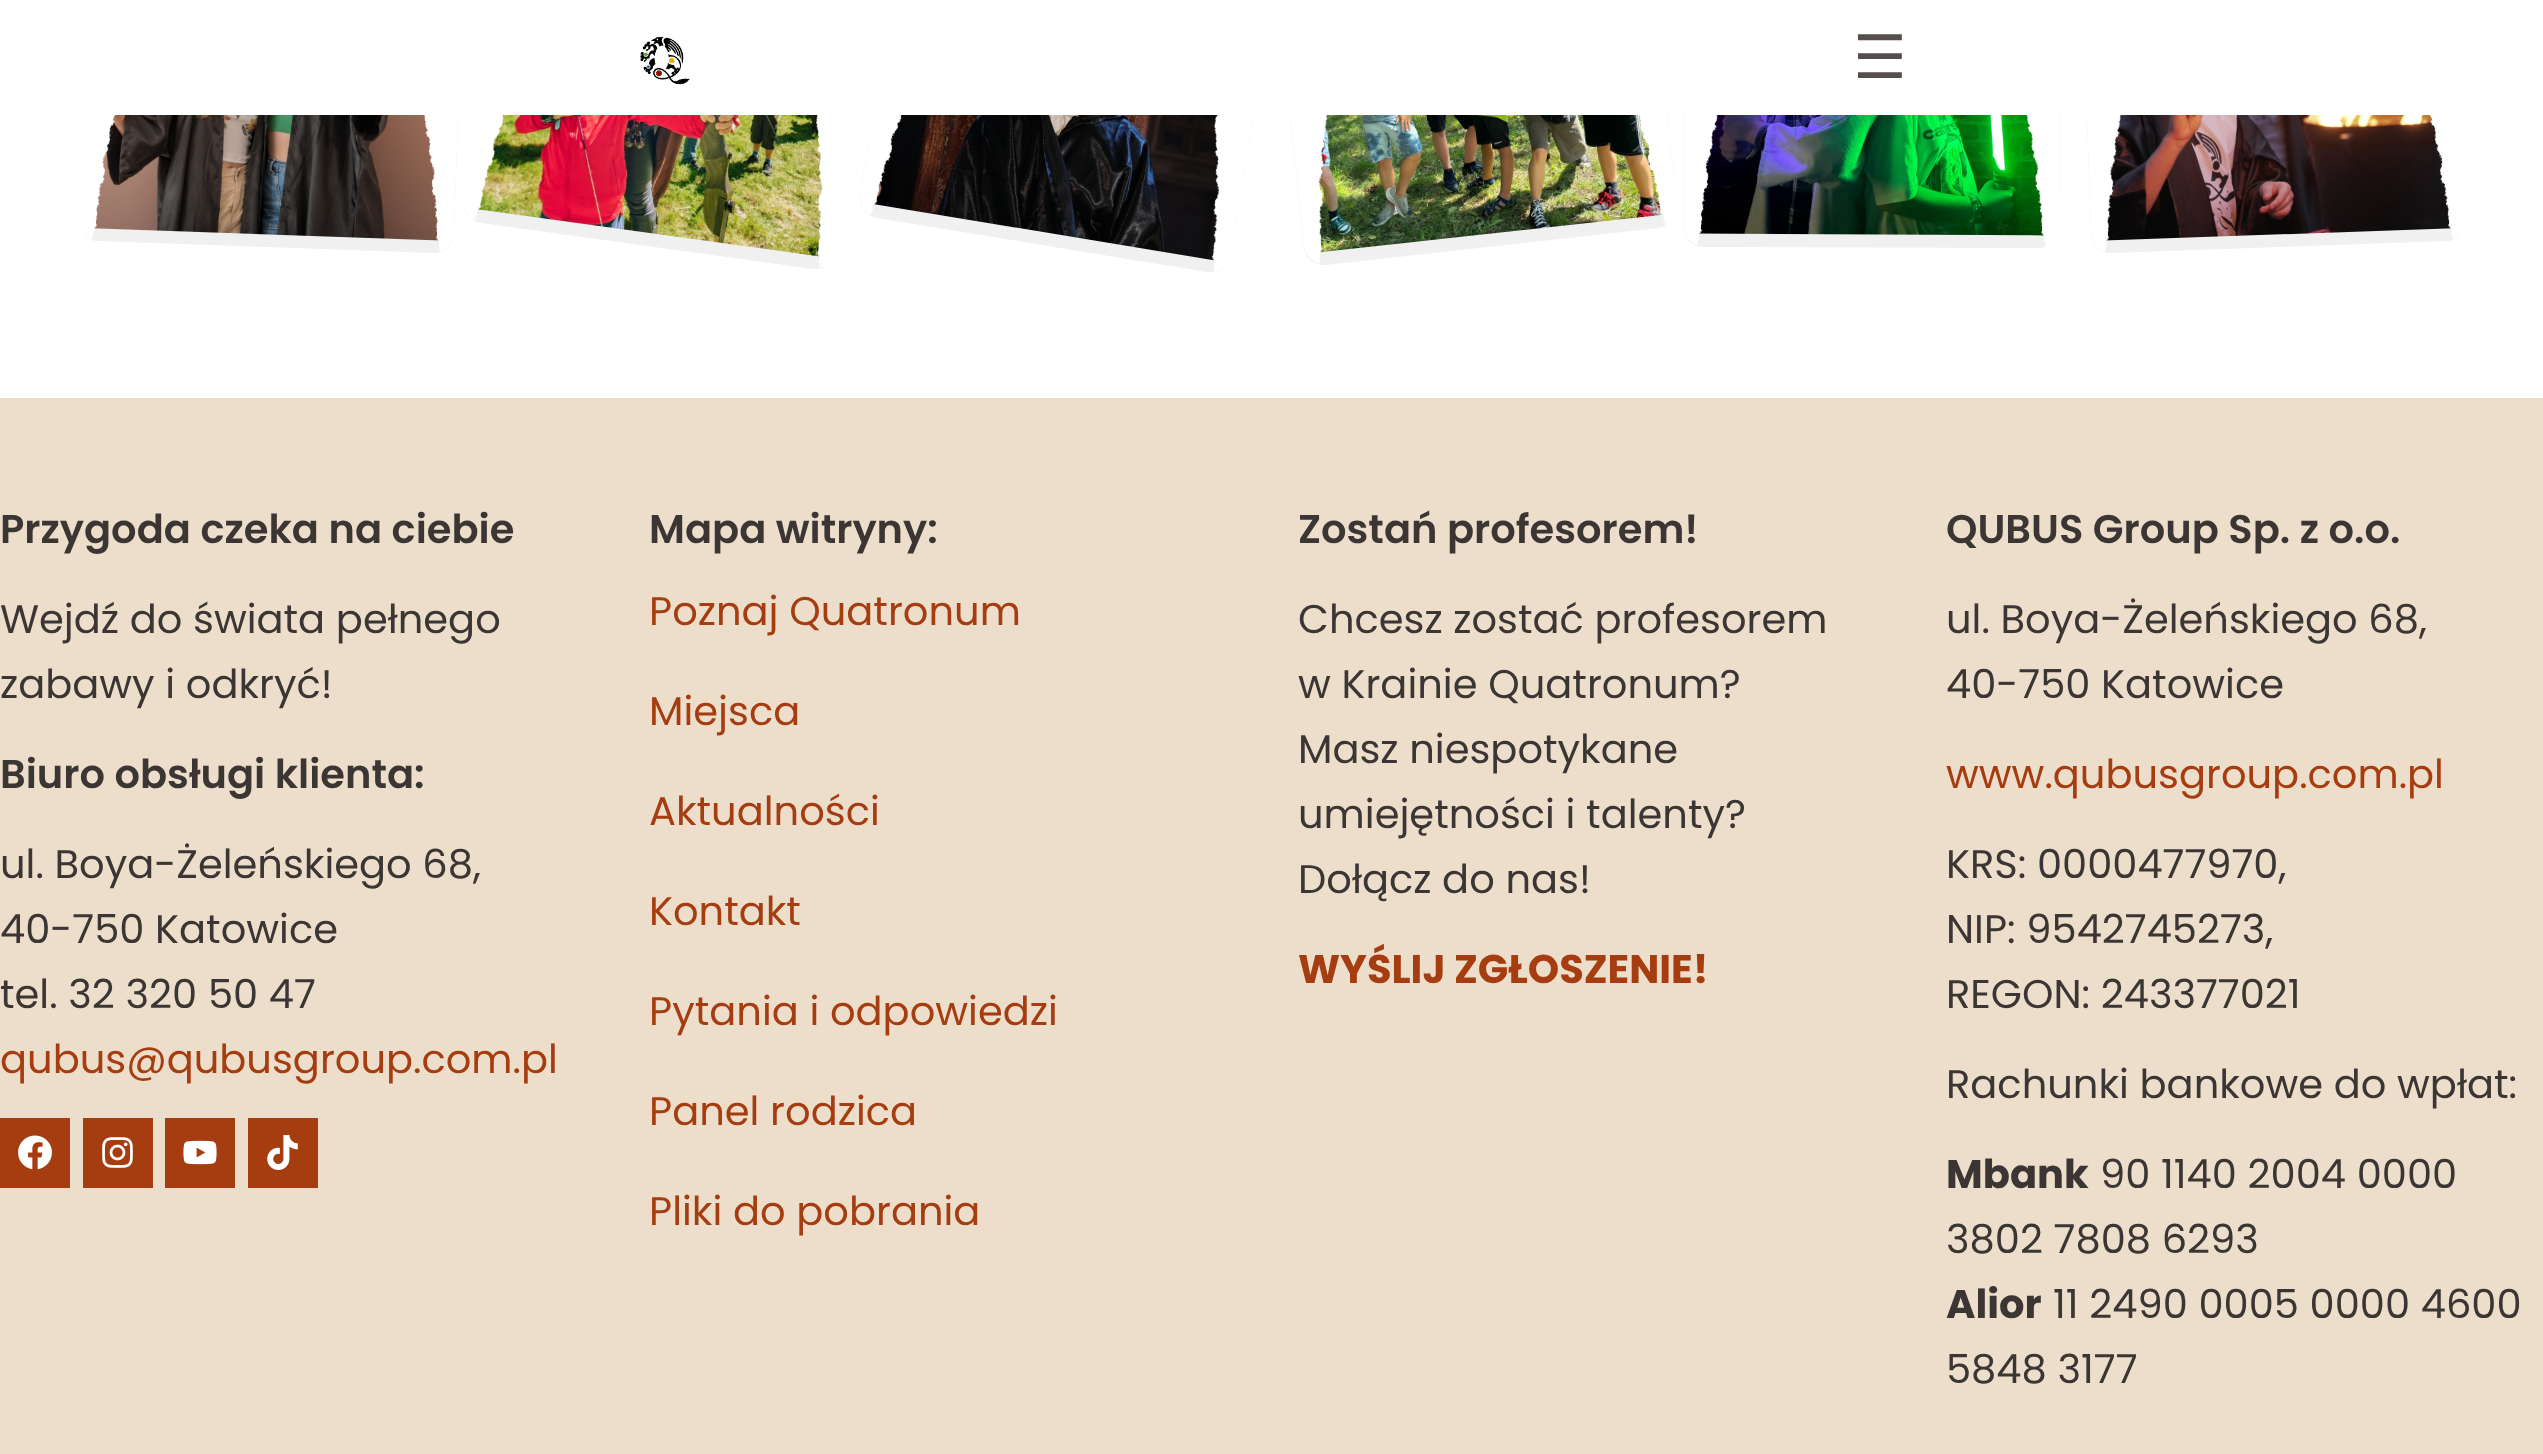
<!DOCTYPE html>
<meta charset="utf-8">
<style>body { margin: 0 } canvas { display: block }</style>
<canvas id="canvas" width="2543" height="1454"></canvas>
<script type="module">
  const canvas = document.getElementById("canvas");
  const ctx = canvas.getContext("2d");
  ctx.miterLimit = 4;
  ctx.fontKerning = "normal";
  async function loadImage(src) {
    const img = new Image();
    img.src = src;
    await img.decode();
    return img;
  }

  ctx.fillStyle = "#ffffff";
  ctx.fillRect(0, 0, 2543, 1454);
  ctx.save();
  ctx.beginPath();
  ctx.rect(85, 0, 2375, 298);
  ctx.clip();
  ctx.fillStyle = "#f0f0f0";
  ctx.beginPath();
  ctx.moveTo(112, -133);
  ctx.lineTo(447, -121);
  ctx.bezierCurveTo(458, -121, 466, -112, 466, -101);
  ctx.lineTo(454, 234);
  ctx.bezierCurveTo(454, 245, 444, 254, 433, 253);
  ctx.lineTo(98, 241);
  ctx.bezierCurveTo(87, 241, 79, 232, 79, 221);
  ctx.lineTo(91, -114);
  ctx.bezierCurveTo(91, -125, 101, -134, 112, -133);
  ctx.closePath();
  ctx.fill();
  ctx.restore();
  ctx.fillStyle = "#f0f0f0";
  ctx.beginPath();
  ctx.moveTo(532, -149);
  ctx.lineTo(864, -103);
  ctx.bezierCurveTo(875, -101, 883, -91, 881, -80);
  ctx.lineTo(835, 251);
  ctx.bezierCurveTo(834, 262, 824, 270, 813, 269);
  ctx.lineTo(481, 223);
  ctx.bezierCurveTo(470, 221, 462, 211, 464, 200);
  ctx.lineTo(510, -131);
  ctx.bezierCurveTo(511, -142, 521, -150, 532, -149);
  ctx.closePath();
  ctx.fill();
  ctx.beginPath();
  ctx.moveTo(938, -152);
  ctx.lineTo(1268, -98);
  ctx.bezierCurveTo(1279, -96, 1287, -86, 1285, -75);
  ctx.lineTo(1230, 256);
  ctx.bezierCurveTo(1228, 267, 1218, 274, 1207, 272);
  ctx.lineTo(877, 218);
  ctx.bezierCurveTo(866, 216, 858, 206, 860, 195);
  ctx.lineTo(915, -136);
  ctx.bezierCurveTo(917, -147, 927, -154, 938, -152);
  ctx.closePath();
  ctx.fill();
  ctx.beginPath();
  ctx.moveTo(1286, -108);
  ctx.lineTo(1619, -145);
  ctx.bezierCurveTo(1630, -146, 1640, -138, 1641, -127);
  ctx.lineTo(1677, 206);
  ctx.bezierCurveTo(1678, 217, 1670, 227, 1659, 228);
  ctx.lineTo(1326, 265);
  ctx.bezierCurveTo(1315, 266, 1305, 258, 1304, 247);
  ctx.lineTo(1268, -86);
  ctx.bezierCurveTo(1267, -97, 1275, -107, 1286, -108);
  ctx.closePath();
  ctx.fill();
  ctx.beginPath();
  ctx.moveTo(1706, -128);
  ctx.lineTo(2041, -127);
  ctx.bezierCurveTo(2052, -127, 2061, -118, 2061, -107);
  ctx.lineTo(2059, 228);
  ctx.bezierCurveTo(2059, 240, 2050, 248, 2039, 248);
  ctx.lineTo(1704, 247);
  ctx.bezierCurveTo(1693, 247, 1684, 238, 1684, 227);
  ctx.lineTo(1686, -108);
  ctx.bezierCurveTo(1686, -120, 1695, -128, 1706, -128);
  ctx.closePath();
  ctx.fill();
  ctx.save();
  ctx.beginPath();
  ctx.rect(85, 0, 2375, 298);
  ctx.clip();
  ctx.beginPath();
  ctx.moveTo(2098, -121);
  ctx.lineTo(2433, -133);
  ctx.bezierCurveTo(2444, -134, 2454, -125, 2454, -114);
  ctx.lineTo(2466, 221);
  ctx.bezierCurveTo(2466, 232, 2458, 241, 2447, 241);
  ctx.lineTo(2112, 253);
  ctx.bezierCurveTo(2101, 254, 2091, 245, 2091, 234);
  ctx.lineTo(2079, -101);
  ctx.bezierCurveTo(2079, -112, 2087, -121, 2098, -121);
  ctx.closePath();
  ctx.fill();
  ctx.restore();
  ctx.fillStyle = "#ffffff";
  ctx.fillRect(85, 0, 2375, 115);
  ctx.drawImage(await loadImage("img1.png"), 640, 36, 50, 49);
  ctx.font = "60px DejaVu Sans";
  ctx.fillStyle = "#564e4c";
  ctx.fillText("☰", 1853, 78);
  ctx.drawImage(await loadImage("img3.png"), 93, 115, 347, 126);
  ctx.drawImage(await loadImage("img2.png"), 85, 115, 31, 125);
  ctx.drawImage(await loadImage("img4.png"), 423, 115, 35, 137);
  ctx.drawImage(await loadImage("img6.png"), 477, 115, 346, 142);
  ctx.drawImage(await loadImage("img5.png"), 464, 115, 40, 105);
  ctx.drawImage(await loadImage("img7.png"), 816, 115, 38, 153);
  ctx.drawImage(await loadImage("img9.png"), 873, 115, 347, 146);
  ctx.drawImage(await loadImage("img8.png"), 860, 115, 42, 100);
  ctx.drawImage(await loadImage("img10.png"), 1211, 115, 43, 157);
  ctx.drawImage(await loadImage("img12.png"), 1318, 115, 346, 138);
  ctx.drawImage(await loadImage("img11.png"), 1290, 115, 38, 149);
  ctx.drawImage(await loadImage("img13.png"), 1638, 115, 39, 111);
  ctx.drawImage(await loadImage("img15.png"), 1698, 115, 347, 121);
  ctx.drawImage(await loadImage("img14.png"), 1684, 115, 34, 130);
  ctx.drawImage(await loadImage("img16.png"), 2026, 115, 34, 132);
  ctx.drawImage(await loadImage("img18.png"), 2105, 115, 347, 126);
  ctx.drawImage(await loadImage("img17.png"), 2087, 115, 35, 137);
  ctx.drawImage(await loadImage("img19.png"), 2429, 115, 31, 125);
  ctx.fillStyle = "#ecdeca";
  ctx.fillRect(0, 398, 2543, 1056);
  ctx.font = "600 40px Poppins";
  ctx.fillStyle = "#3b3634";
  ctx.fillText("Przygoda czeka na ciebie", 0, 543);
  ctx.font = "40px Poppins";
  ctx.fillText("Wejdź do świata pełnego", 0, 633);
  ctx.fillText("zabawy i odkryć!", 0, 698);
  ctx.font = "600 40px Poppins";
  ctx.fillText("Biuro obsługi klienta:", 0, 788);
  ctx.font = "40px Poppins";
  ctx.fillText("ul. Boya-Żeleńskiego 68,", 0, 878);
  ctx.fillText("40-750 Katowice", 0, 943);
  ctx.fillText("tel. 32 320 50 47", 0, 1008);
  ctx.fillStyle = "#a63d11";
  ctx.fillText("qubus@qubusgroup.com.pl", 0, 1073);
  ctx.fillRect(0, 1118, 70, 70);
  ctx.drawImage(await loadImage("img20.png"), 18, 1135, 34, 35);
  ctx.fillRect(83, 1118, 70, 70);
  ctx.drawImage(await loadImage("img21.png"), 102, 1137, 31, 31);
  ctx.fillRect(165, 1118, 70, 70);
  ctx.drawImage(await loadImage("img22.png"), 183, 1140, 34, 25);
  ctx.fillRect(248, 1118, 70, 70);
  ctx.drawImage(await loadImage("img23.png"), 267, 1135, 31, 35);
  ctx.font = "600 40px Poppins";
  ctx.fillStyle = "#3b3634";
  ctx.fillText("Mapa witryny:", 649, 543);
  ctx.font = "40px Poppins";
  ctx.fillStyle = "#a63d11";
  ctx.fillText("Poznaj Quatronum", 649, 625);
  ctx.fillText("Miejsca", 649, 725);
  ctx.fillText("Aktualności", 649, 825);
  ctx.fillText("Kontakt", 649, 925);
  ctx.fillText("Pytania i odpowiedzi", 649, 1025);
  ctx.fillText("Panel rodzica", 649, 1125);
  ctx.fillText("Pliki do pobrania", 649, 1225);
  ctx.font = "600 40px Poppins";
  ctx.fillStyle = "#3b3634";
  ctx.fillText("Zostań profesorem!", 1298, 543);
  ctx.font = "40px Poppins";
  ctx.fillText("Chcesz zostać profesorem", 1298, 633);
  ctx.fillText("w Krainie Quatronum?", 1298, 698);
  ctx.fillText("Masz niespotykane", 1298, 763);
  ctx.fillText("umiejętności i talenty?", 1298, 828);
  ctx.fillText("Dołącz do nas!", 1298, 893);
  ctx.font = "bold 40px Poppins";
  ctx.fillStyle = "#a63d11";
  ctx.fillText("WYŚLIJ ZGŁOSZENIE!", 1298, 983);
  ctx.font = "600 40px Poppins";
  ctx.fillStyle = "#3b3634";
  ctx.fillText("QUBUS Group Sp. z o.o.", 1946, 543);
  ctx.font = "40px Poppins";
  ctx.fillText("ul. Boya-Żeleńskiego 68,", 1946, 633);
  ctx.fillText("40-750 Katowice", 1946, 698);
  ctx.fillStyle = "#a63d11";
  ctx.fillText("www.qubusgroup.com.pl", 1946, 788);
  ctx.fillStyle = "#3b3634";
  ctx.fillText("KRS: 0000477970,", 1946, 878);
  ctx.fillText("NIP: 9542745273,", 1946, 943);
  ctx.fillText("REGON: 243377021", 1946, 1008);
  ctx.fillText("Rachunki bankowe do wpłat:", 1946, 1098);
  ctx.font = "bold 40px Poppins";
  ctx.fillText("Mbank", 1946, 1188);
  ctx.font = "40px Poppins";
  ctx.fillText("90 1140 2004 0000", 2100, 1188);
  ctx.fillText("3802 7808 6293", 1946, 1253);
  ctx.font = "bold 40px Poppins";
  ctx.fillText("Alior", 1946, 1318);
  ctx.font = "40px Poppins";
  ctx.fillText("11 2490 0005 0000 4600", 2053, 1318);
  ctx.fillText("5848 3177", 1946, 1383);
</script>
